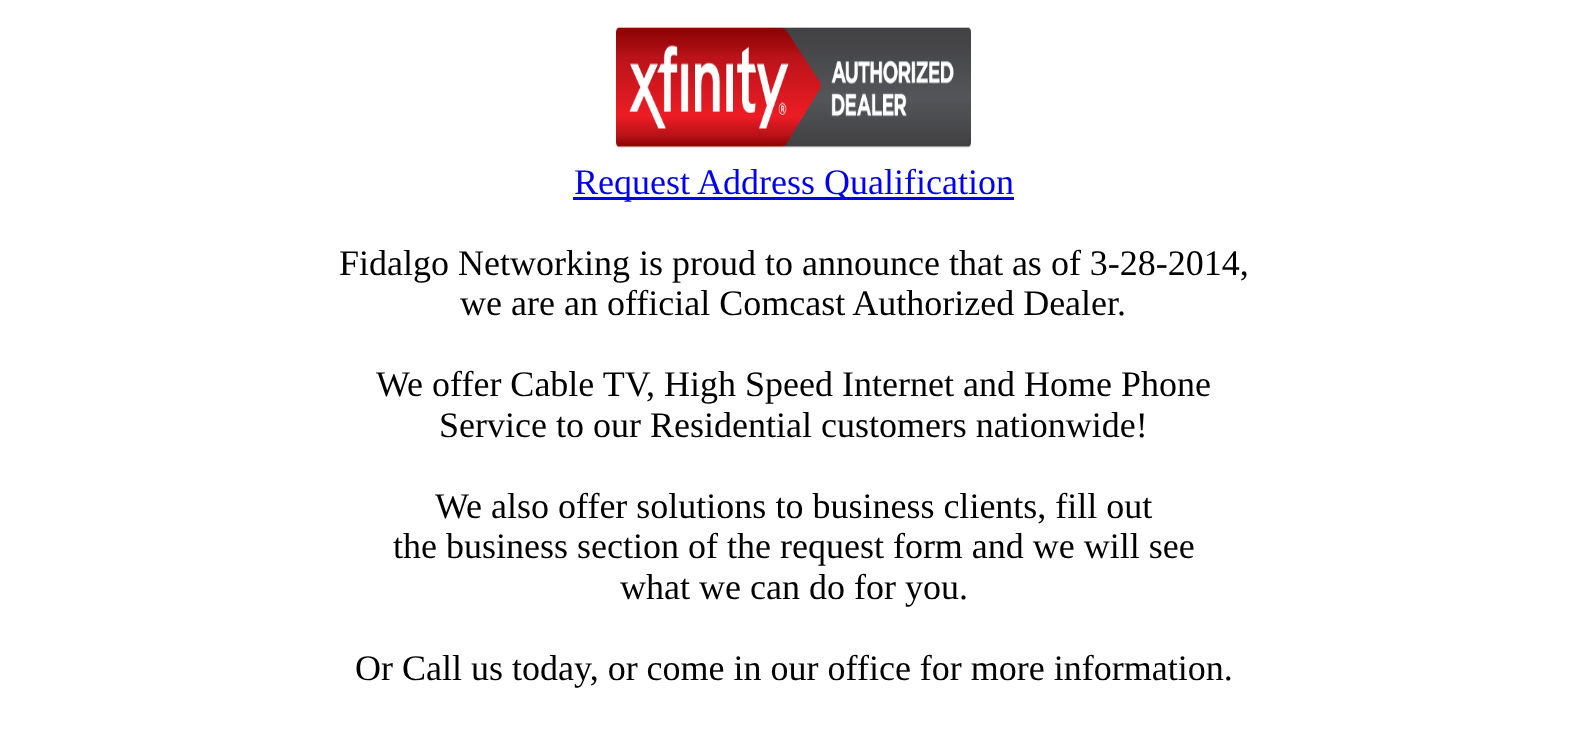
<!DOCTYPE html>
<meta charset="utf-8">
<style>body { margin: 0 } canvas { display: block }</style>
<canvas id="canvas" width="1586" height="737"></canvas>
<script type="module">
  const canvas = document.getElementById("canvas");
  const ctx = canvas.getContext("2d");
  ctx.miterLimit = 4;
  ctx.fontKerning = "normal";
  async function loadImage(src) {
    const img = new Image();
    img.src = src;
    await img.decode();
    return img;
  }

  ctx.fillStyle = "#ffffff";
  ctx.fillRect(0, 0, 1586, 737);
  ctx.drawImage(await loadImage("img1.png"), 616, 27, 355, 121);
  ctx.fillStyle = "#0000ee";
  ctx.fillRect(573, 197, 441, 3);
  ctx.font = "36px Liberation Serif";
  ctx.fillText("Request Address Qualification", 574, 194);
  ctx.fillStyle = "#000000";
  ctx.fillText("Fidalgo Networking is proud to announce that as of 3-28-2014,", 339, 275);
  ctx.fillText("we are an official Comcast Authorized Dealer.", 460, 315);
  ctx.fillText("We offer Cable TV, High Speed Internet and Home Phone", 376, 396);
  ctx.fillText("Service to our Residential customers nationwide!", 439, 437);
  ctx.fillText("We also offer solutions to business clients, fill out", 435, 518);
  ctx.fillText("the business section of the request form and we will see", 393, 558);
  ctx.fillText("what we can do for you.", 620, 599);
  ctx.fillText("Or Call us today, or come in our office for more information.", 355, 680);
</script>
